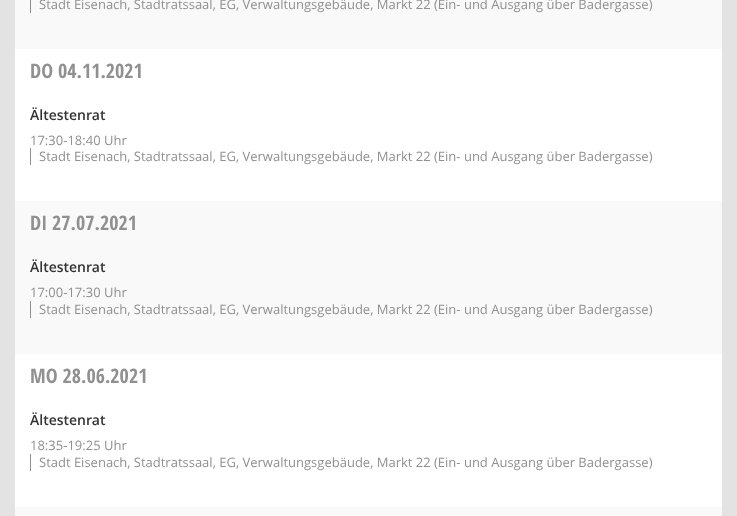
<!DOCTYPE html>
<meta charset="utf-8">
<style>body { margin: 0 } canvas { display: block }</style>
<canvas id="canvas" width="737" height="516"></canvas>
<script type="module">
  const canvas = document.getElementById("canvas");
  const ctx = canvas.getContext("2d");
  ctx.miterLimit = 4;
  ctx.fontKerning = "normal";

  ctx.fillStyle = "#e3e3e3";
  ctx.fillRect(0, 0, 737, 516);
  ctx.fillStyle = "#ffffff";
  ctx.fillRect(15, 49, 707, 458);
  ctx.fillStyle = "#f9f9f9";
  ctx.fillRect(15, 0, 707, 49);
  ctx.fillStyle = "#909090";
  ctx.fillRect(30, 0, 1, 13);
  ctx.font = "13px Open Sans";
  ctx.fillText("Stadt Eisenach, Stadtratssaal, EG, Verwaltungsgebäude, Markt 22 (Ein- und Ausgang über Badergasse)", 39, 9);
  ctx.font = "bold 20px Open Sans Condensed";
  ctx.fillText("DO 04.11.2021", 30, 78);
  ctx.font = "600 14px Open Sans";
  ctx.fillStyle = "#333333";
  ctx.fillText("Ältestenrat", 30, 120);
  ctx.font = "13px Open Sans";
  ctx.fillStyle = "#909090";
  ctx.fillText("17:30-18:40 Uhr", 30, 145);
  ctx.fillRect(30, 148, 1, 17);
  ctx.fillText("Stadt Eisenach, Stadtratssaal, EG, Verwaltungsgebäude, Markt 22 (Ein- und Ausgang über Badergasse)", 39, 161);
  ctx.fillStyle = "#f9f9f9";
  ctx.fillRect(15, 201, 707, 153);
  ctx.font = "bold 20px Open Sans Condensed";
  ctx.fillStyle = "#909090";
  ctx.fillText("DI 27.07.2021", 30, 230);
  ctx.font = "600 14px Open Sans";
  ctx.fillStyle = "#333333";
  ctx.fillText("Ältestenrat", 30, 272);
  ctx.font = "13px Open Sans";
  ctx.fillStyle = "#909090";
  ctx.fillText("17:00-17:30 Uhr", 30, 297);
  ctx.fillRect(30, 301, 1, 17);
  ctx.fillText("Stadt Eisenach, Stadtratssaal, EG, Verwaltungsgebäude, Markt 22 (Ein- und Ausgang über Badergasse)", 39, 314);
  ctx.font = "bold 20px Open Sans Condensed";
  ctx.fillText("MO 28.06.2021", 30, 383);
  ctx.font = "600 14px Open Sans";
  ctx.fillStyle = "#333333";
  ctx.fillText("Ältestenrat", 30, 425);
  ctx.font = "13px Open Sans";
  ctx.fillStyle = "#909090";
  ctx.fillText("18:35-19:25 Uhr", 30, 450);
  ctx.fillRect(30, 454, 1, 17);
  ctx.fillText("Stadt Eisenach, Stadtratssaal, EG, Verwaltungsgebäude, Markt 22 (Ein- und Ausgang über Badergasse)", 39, 467);
  ctx.fillStyle = "#f9f9f9";
  ctx.fillRect(15, 507, 707, 9);
</script>
